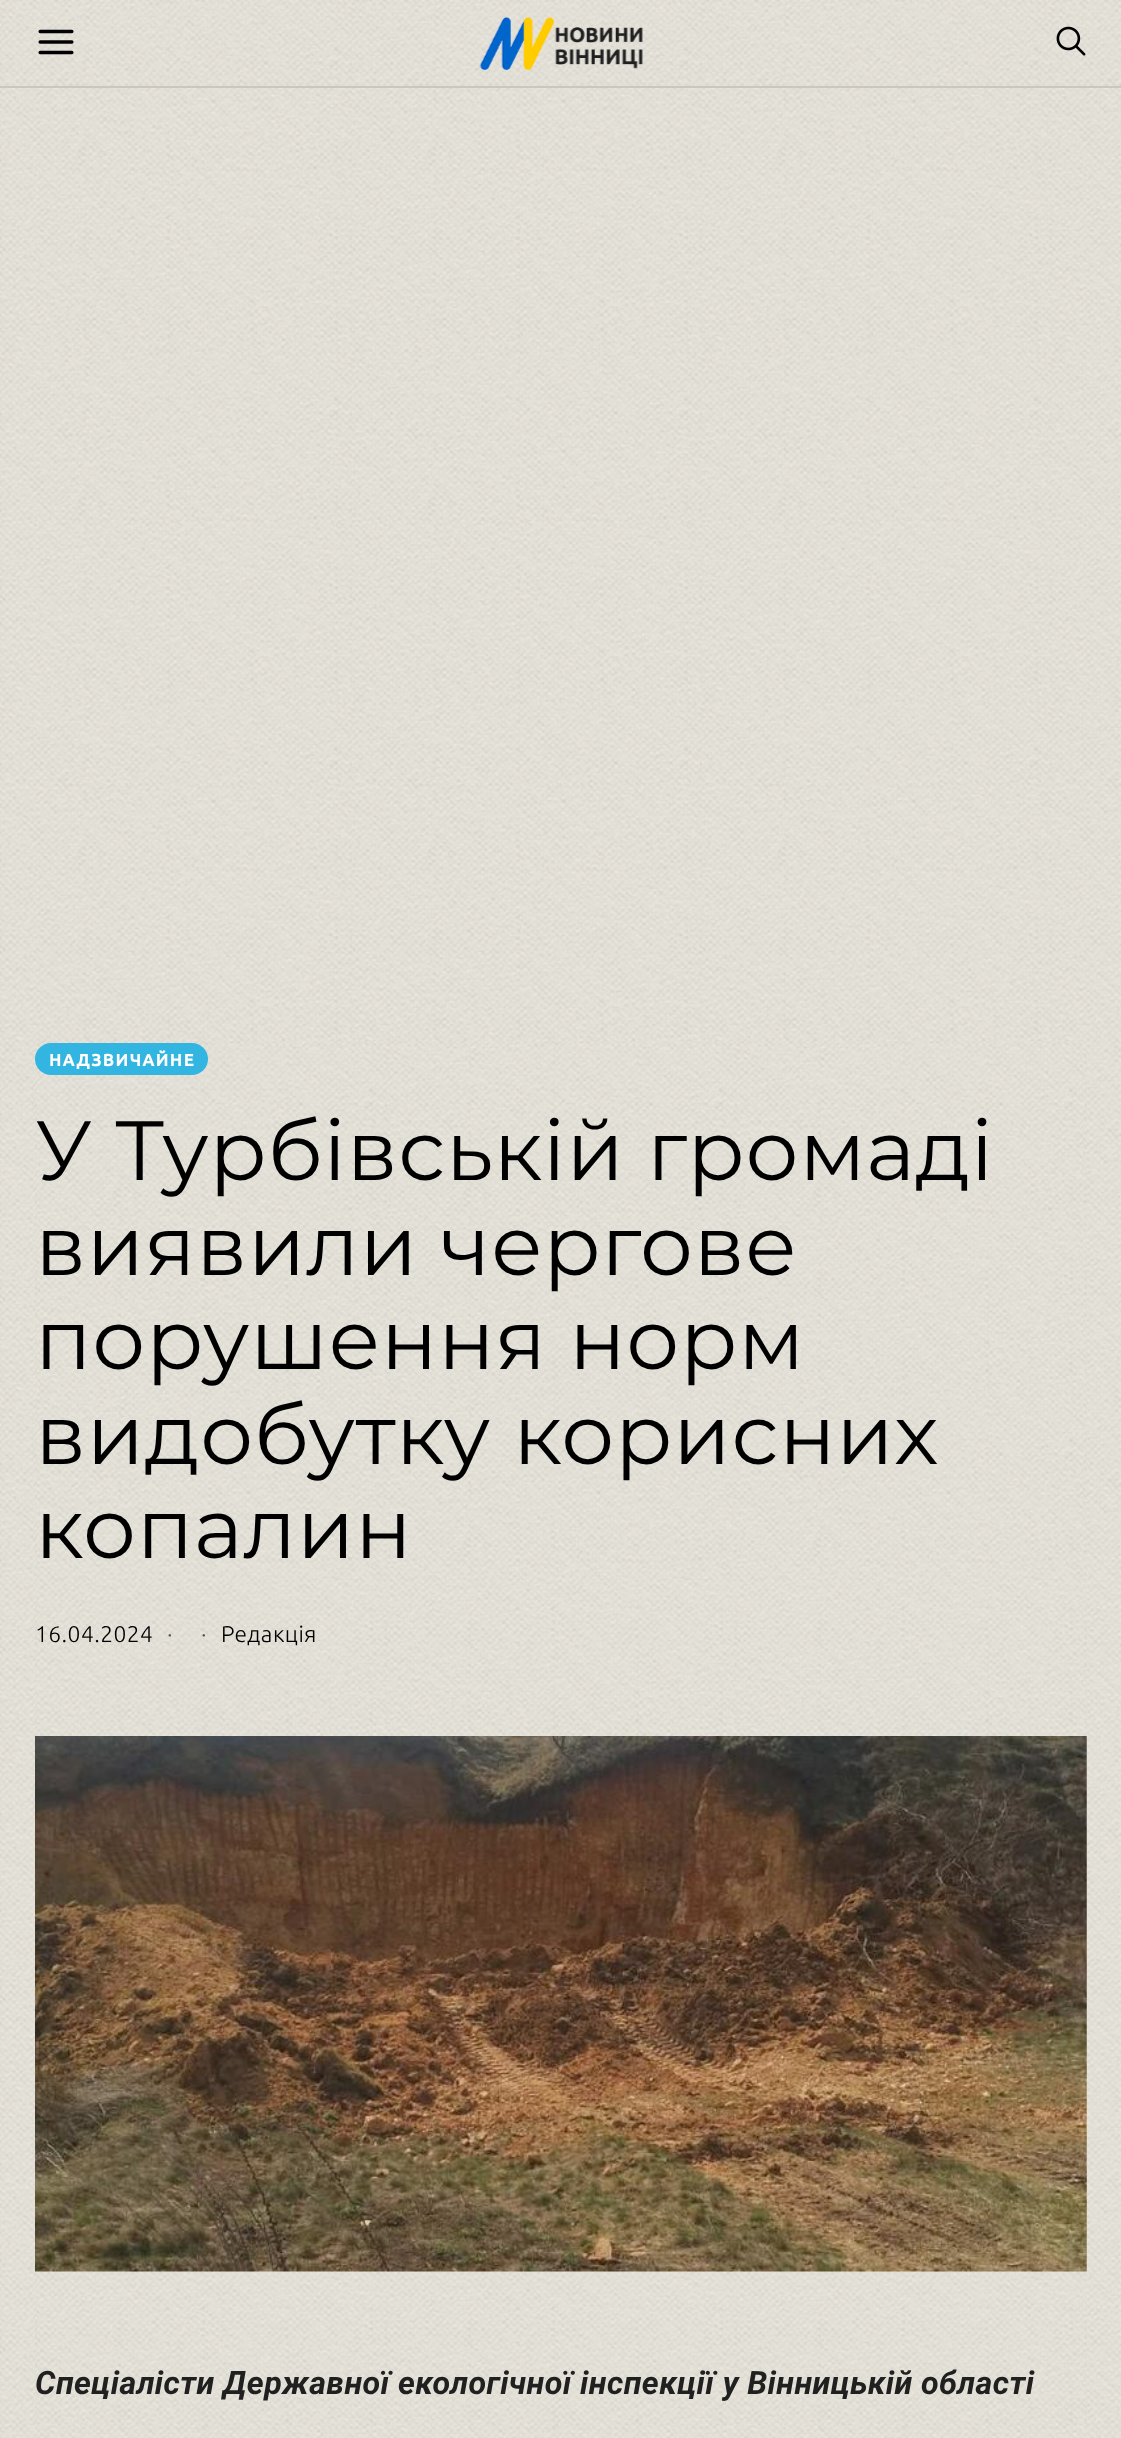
<!DOCTYPE html>
<meta charset="utf-8">
<style>body { margin: 0 } canvas { display: block }</style>
<canvas id="canvas" width="1121" height="2438"></canvas>
<script type="module">
  const canvas = document.getElementById("canvas");
  const ctx = canvas.getContext("2d");
  ctx.miterLimit = 4;
  ctx.fontKerning = "normal";
  async function loadImage(src) {
    const img = new Image();
    img.src = src;
    await img.decode();
    return img;
  }

  ctx.fillStyle = "#ffffff";
  ctx.fillRect(0, 0, 1121, 2438);
  ctx.drawImage(await loadImage("img1.png"), 0, 0, 1121, 2438);
  ctx.fillStyle = "#cac7bf";
  ctx.fillRect(0, 86, 1121, 2);
  ctx.drawImage(await loadImage("img2.png"), 38, 29, 36, 26);
  ctx.drawImage(await loadImage("img3.png"), 479, 17, 164, 53);
  ctx.drawImage(await loadImage("img4.png"), 1056, 26, 30, 30);
  ctx.drawImage(await loadImage("img5.png"), 35, 1041, 1052, 1397);
  ctx.fillStyle = "#32b5e1";
  ctx.beginPath();
  ctx.roundRect(35, 1043, 173, 32, 16);
  ctx.fill();
  ctx.letterSpacing = "1.75px";
  ctx.font = "bold 16.75px Ubuntu";
  ctx.fillStyle = "#ffffff";
  ctx.fillText("НАДЗВИЧАЙНЕ", 49, 1066);
  ctx.letterSpacing = "0.45px";
  ctx.font = "84px Montserrat";
  ctx.fillStyle = "#000000";
  ctx.fillText("У Турбівській громаді", 35, 1180);
  ctx.fillText("виявили чергове", 35, 1275);
  ctx.fillText("порушення норм", 35, 1369);
  ctx.fillText("видобутку корисних", 35, 1464);
  ctx.fillText("копалин", 35, 1558);
  ctx.font = "300 22.75px Ubuntu";
  ctx.fillText("16.04.2024", 35, 1642);
  ctx.fillStyle = "#555555";
  ctx.fillText("·", 167, 1642);
  ctx.fillText("·", 201, 1642);
  ctx.fillStyle = "#000000";
  ctx.fillText("Редакція", 221, 1642);
  ctx.drawImage(await loadImage("img6.png"), 35, 1736, 1052, 536);
  ctx.font = "italic bold 32.2px Roboto";
  ctx.fillStyle = "#202020";
  ctx.fillText("Спеціалісти Державної екологічної інспекції у Вінницькій області", 35, 2394);
</script>
